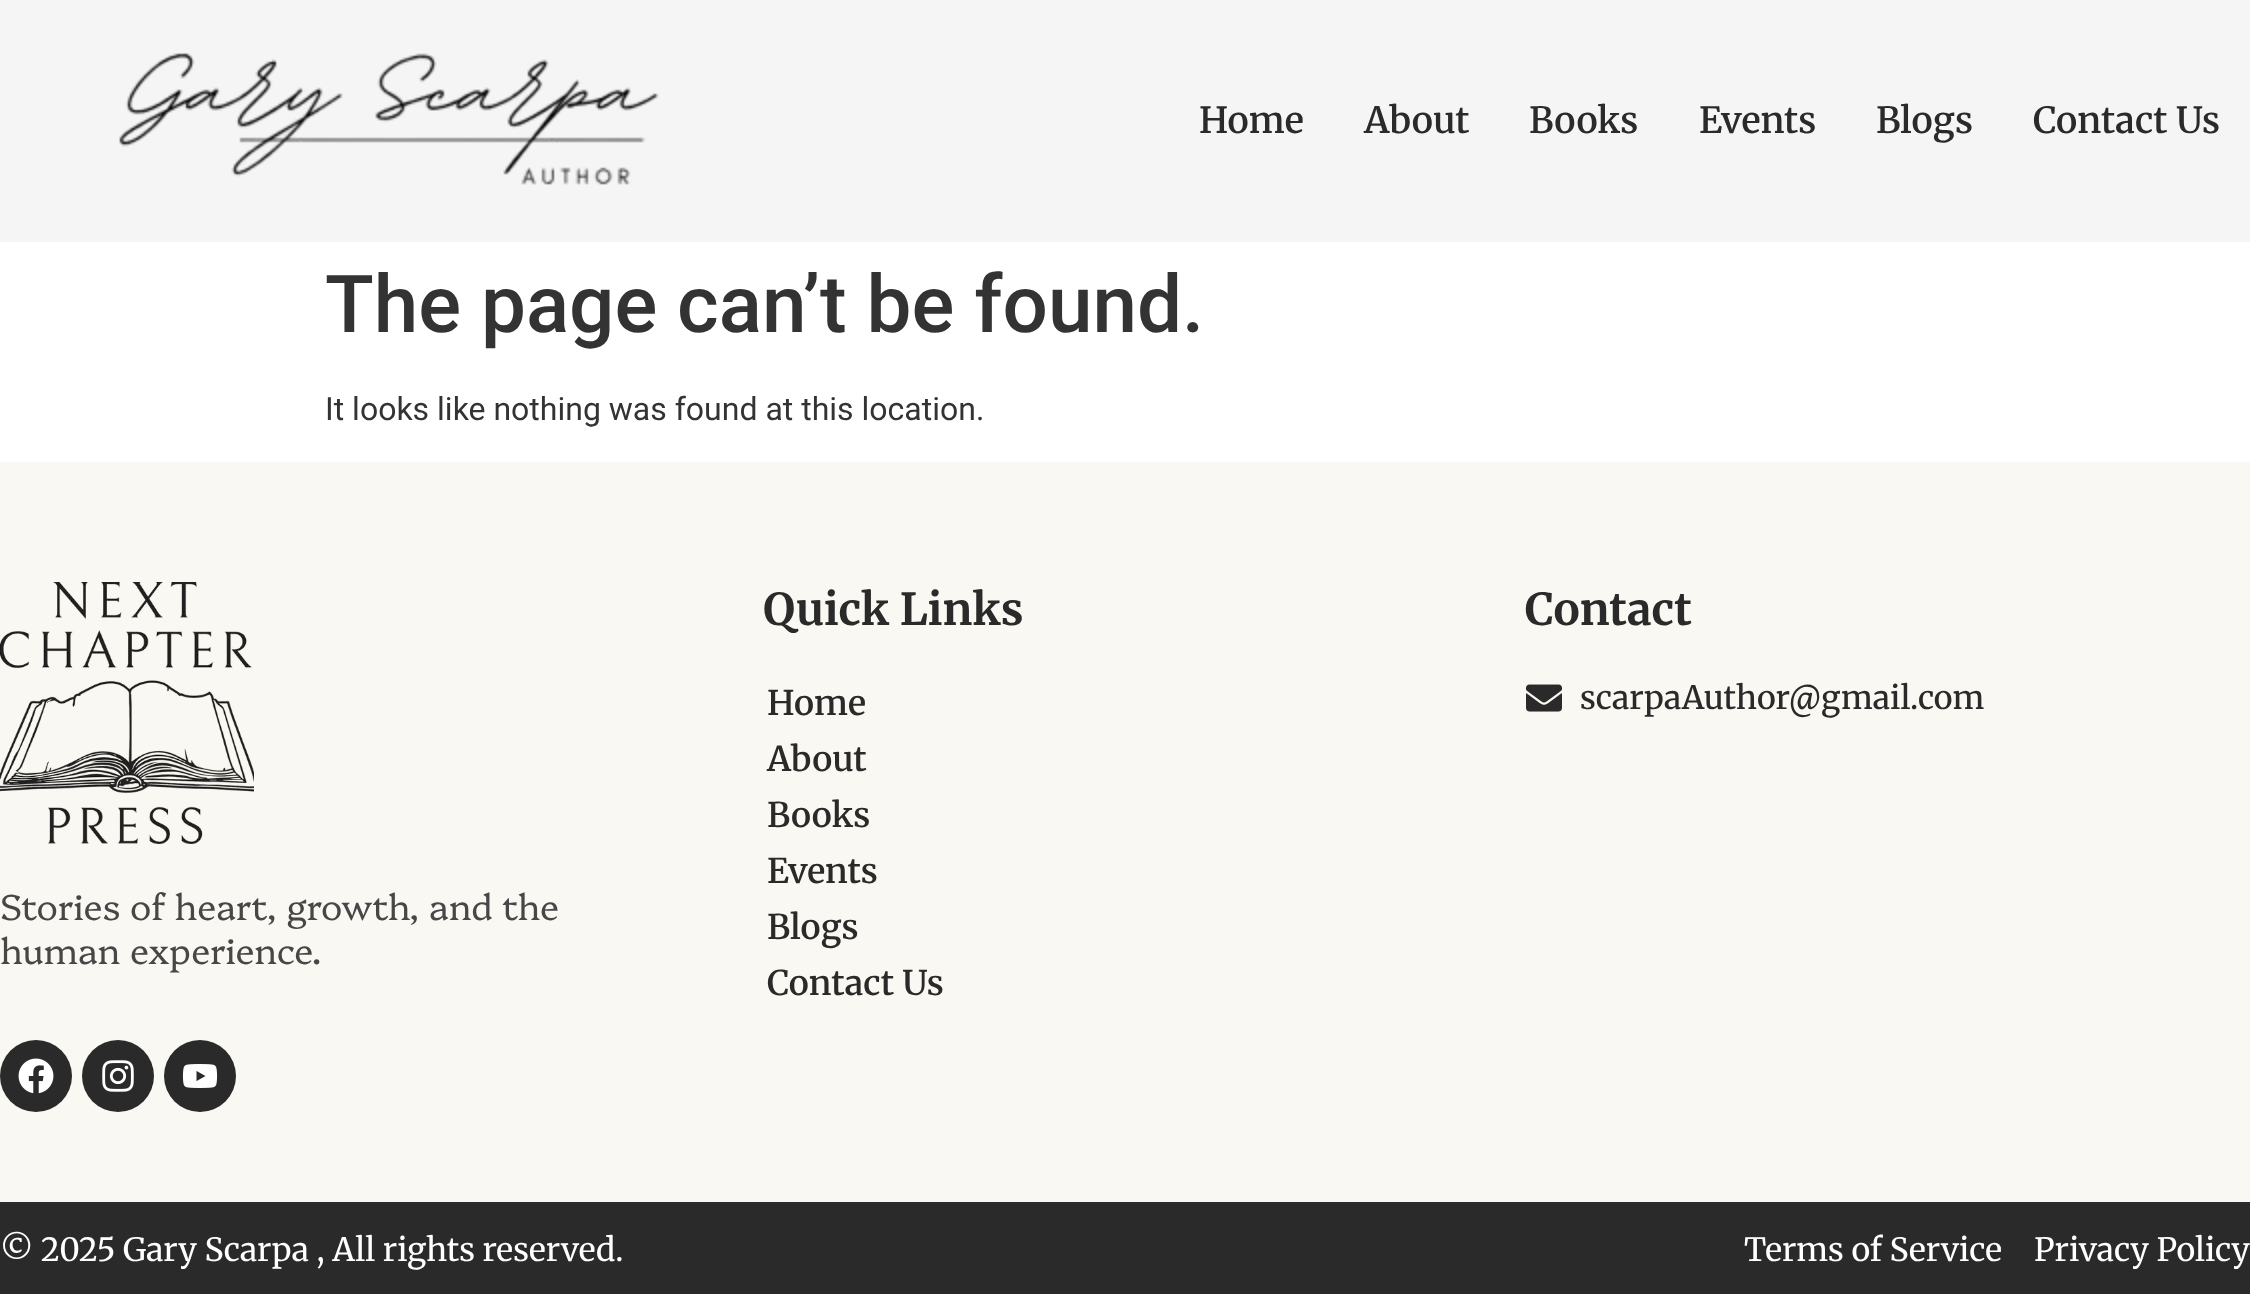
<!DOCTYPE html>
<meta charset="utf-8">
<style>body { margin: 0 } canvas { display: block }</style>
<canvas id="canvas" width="2250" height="1305"></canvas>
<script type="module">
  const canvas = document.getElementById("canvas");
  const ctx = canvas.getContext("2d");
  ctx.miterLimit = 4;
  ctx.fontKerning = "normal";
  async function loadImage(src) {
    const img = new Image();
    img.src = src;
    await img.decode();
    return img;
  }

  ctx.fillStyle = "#ffffff";
  ctx.fillRect(0, 0, 2250, 1305);
  ctx.fillStyle = "#f5f5f5";
  ctx.fillRect(0, 0, 2250, 242);
  ctx.drawImage(await loadImage("img1.png"), 119, 52, 540, 133);
  ctx.font = "600 36px Merriweather";
  ctx.fillStyle = "#2a2a2a";
  ctx.fillText("Home", 1199, 133);
  ctx.fillText("About", 1364, 133);
  ctx.fillText("Books", 1529, 133);
  ctx.fillText("Events", 1699, 133);
  ctx.fillText("Blogs", 1876, 133);
  ctx.fillText("Contact Us", 2033, 133);
  ctx.font = "500 80px Roboto";
  ctx.fillStyle = "#333333";
  ctx.fillText("The page can’t be found.", 325, 332);
  ctx.font = "32px Roboto";
  ctx.fillText("It looks like nothing was found at this location.", 325, 420);
  ctx.fillStyle = "#faf8f2";
  ctx.fillRect(0, 462, 2250, 740);
  ctx.font = "bold 44px Merriweather";
  ctx.fillStyle = "#2a2a2a";
  ctx.fillText("Quick Links", 763, 625);
  ctx.font = "600 34px Merriweather";
  ctx.fillText("Home", 767, 715);
  ctx.fillText("About", 767, 771);
  ctx.fillText("Books", 767, 827);
  ctx.fillText("Events", 767, 883);
  ctx.fillText("Blogs", 767, 939);
  ctx.fillText("Contact Us", 767, 995);
  ctx.font = "bold 44px Merriweather";
  ctx.fillText("Contact", 1525, 625);
  ctx.drawImage(await loadImage("img2.png"), 1526, 684, 36, 28);
  ctx.font = "500 32px Merriweather";
  ctx.fillText("scarpaAuthor@gmail.com", 1580, 709);
  ctx.drawImage(await loadImage("img3.png"), 0, 582, 254, 262);
  ctx.font = "300 36px Platypi";
  ctx.fillStyle = "#474747";
  ctx.fillText("Stories of heart, growth, and the", 0, 920);
  ctx.fillText("human experience.", 0, 964);
  ctx.fillStyle = "#2a2a2a";
  ctx.beginPath();
  ctx.arc(36, 1076, 36, 0, Math.PI * 2);
  ctx.fill();
  ctx.drawImage(await loadImage("img4.png"), 18, 1058, 36, 36);
  ctx.beginPath();
  ctx.arc(118, 1076, 36, 0, Math.PI * 2);
  ctx.fill();
  ctx.drawImage(await loadImage("img5.png"), 102, 1060, 32, 32);
  ctx.beginPath();
  ctx.arc(200, 1076, 36, 0, Math.PI * 2);
  ctx.fill();
  ctx.drawImage(await loadImage("img6.png"), 182, 1064, 36, 24);
  ctx.fillRect(0, 1202, 2250, 92);
  ctx.font = "32px Merriweather";
  ctx.fillStyle = "#ffffff";
  ctx.fillText("© 2025 Gary Scarpa , All rights reserved.", 0, 1261);
  ctx.fillText("Terms of Service", 1744, 1261);
  ctx.fillText("Privacy Policy", 2034, 1261);
</script>
